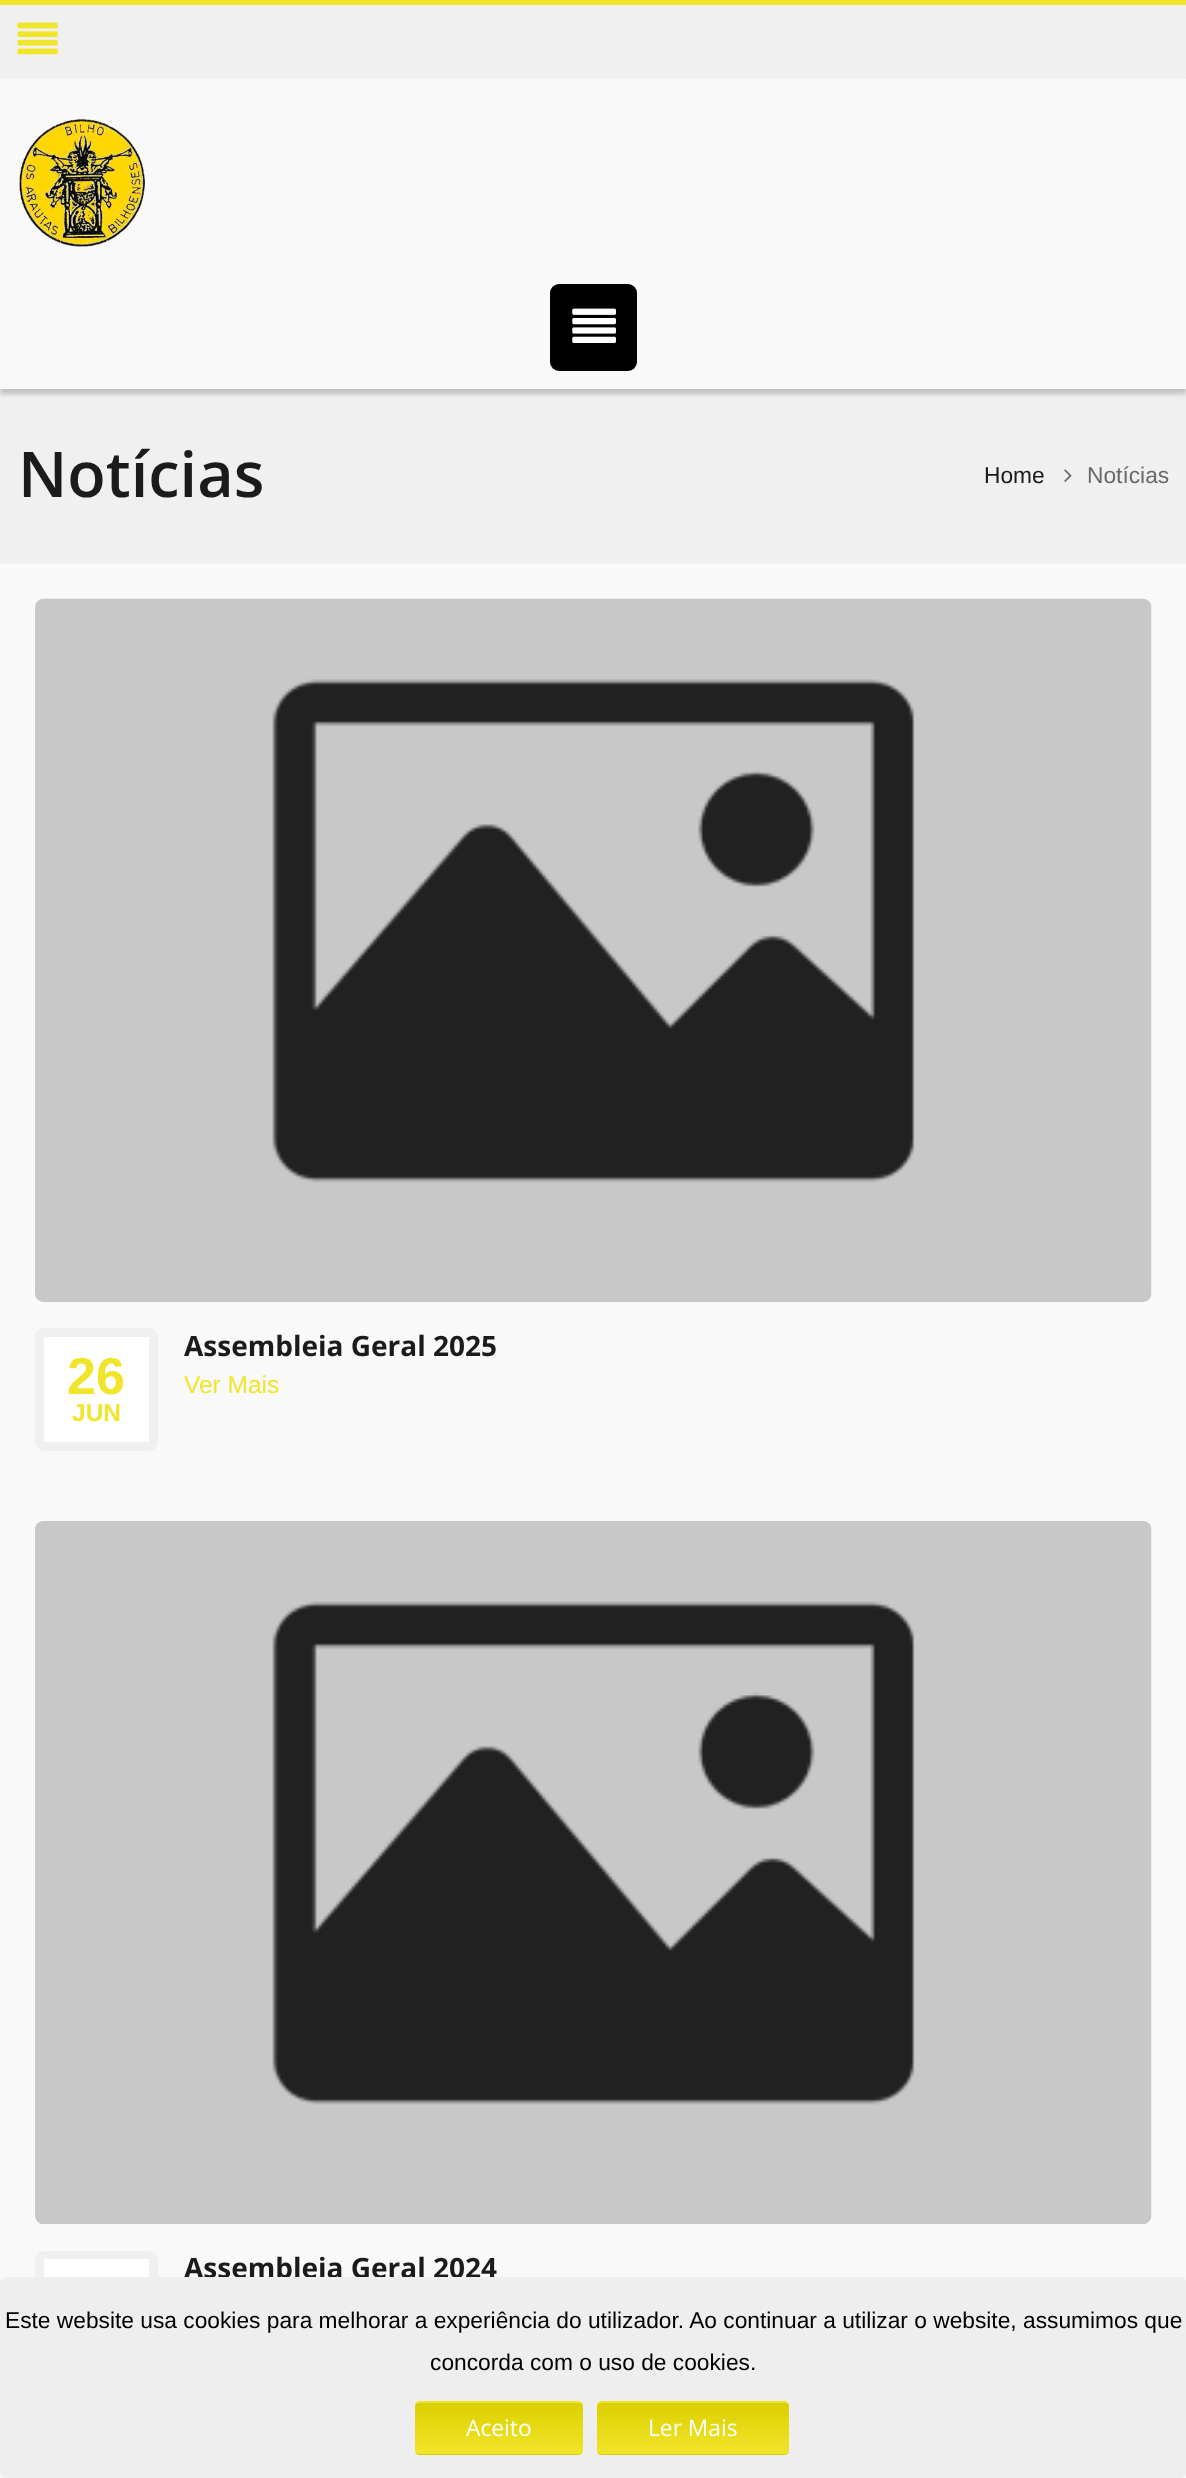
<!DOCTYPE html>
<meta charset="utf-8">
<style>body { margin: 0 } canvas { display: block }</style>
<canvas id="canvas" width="1186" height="2478"></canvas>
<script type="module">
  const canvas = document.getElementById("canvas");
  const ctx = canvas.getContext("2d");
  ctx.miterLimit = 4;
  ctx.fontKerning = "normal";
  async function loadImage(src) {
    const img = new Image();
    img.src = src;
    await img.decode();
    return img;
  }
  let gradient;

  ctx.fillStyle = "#f9f9f9";
  ctx.fillRect(0, 0, 1186, 2478);
  ctx.fillStyle = "#f0f0f0";
  ctx.fillRect(0, 389, 1186, 175);
  ctx.fillStyle = "rgba(0, 0, 0, 0.2)";
  ctx.filter = "blur(2.5px)";
  ctx.beginPath();
  ctx.rect(0, 84, 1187, 310);
  ctx.fill();
  ctx.filter = "none";
  ctx.fillStyle = "#f0f0f0";
  ctx.fillRect(0, 5, 1186, 74);
  ctx.fillStyle = "#f1e52b";
  ctx.fillRect(0, 0, 1186, 5);
  ctx.drawImage(await loadImage("img1.png"), 17, 22, 41, 33);
  ctx.fillStyle = "#f9f9f9";
  ctx.fillRect(0, 80, 1186, 309);
  ctx.drawImage(await loadImage("img2.png"), 19, 118, 126, 129);
  ctx.fillStyle = "#000000";
  ctx.beginPath();
  ctx.roundRect(550, 284, 87, 87, 9);
  ctx.fill();
  ctx.drawImage(await loadImage("img3.png"), 572, 308, 44, 35);
  ctx.font = "600 63px Open Sans";
  ctx.fillStyle = "#1b1b1b";
  ctx.fillText("Notícias", 18, 497);
  ctx.font = "22.75px Liberation Sans";
  ctx.fillText("Home", 984, 483);
  ctx.drawImage(await loadImage("img4.png"), 1064, 469, 8, 13);
  ctx.fillStyle = "#6a6a6a";
  ctx.fillText("Notícias", 1087, 483);
  ctx.drawImage(await loadImage("img5.png"), 35, 598, 1117, 704);
  ctx.fillStyle = "#f0f0f0";
  ctx.beginPath();
  ctx.roundRect(35, 1328, 123, 123, 9);
  ctx.fill();
  ctx.fillStyle = "#ffffff";
  ctx.fillRect(44, 1337, 105, 105);
  ctx.font = "bold 52px Liberation Sans";
  ctx.fillStyle = "#f1e52b";
  ctx.fillText("26", 67, 1394);
  ctx.font = "bold 24.5px Liberation Sans";
  ctx.fillText("JUN", 72, 1421);
  ctx.font = "bold 28px Open Sans";
  ctx.fillStyle = "#1b1b1b";
  ctx.fillText("Assembleia Geral 2025", 184, 1356);
  ctx.font = "24.5px Liberation Sans";
  ctx.fillStyle = "#f1e52b";
  ctx.fillText("Ver Mais", 184, 1393);
  ctx.drawImage(await loadImage("img6.png"), 35, 1521, 1117, 703);
  ctx.fillStyle = "#f0f0f0";
  ctx.beginPath();
  ctx.roundRect(35, 2251, 123, 122, 9);
  ctx.fill();
  ctx.fillStyle = "#ffffff";
  ctx.fillRect(44, 2259, 105, 18);
  ctx.font = "bold 28px Open Sans";
  ctx.fillStyle = "#1b1b1b";
  ctx.fillText("Assembleia Geral 2024", 184, 2278);
  ctx.fillStyle = "#eeeeee";
  ctx.beginPath();
  ctx.roundRect(0, 2277, 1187, 201, 7);
  ctx.fill();
  ctx.font = "22.75px Liberation Sans";
  ctx.fillStyle = "#000000";
  ctx.fillText("Este website usa cookies para melhorar a experiência do utilizador. Ao continuar a utilizar o website, assumimos que", 5, 2328);
  ctx.fillText("concorda com o uso de cookies.", 430, 2370);
  ctx.save();
  ctx.beginPath();
  ctx.roundRect(415, 2401, 168, 54, 5);
  ctx.clip();
  gradient = ctx.createLinearGradient(499, 2403, 499, 2454);
  gradient.addColorStop(0, "#dccf00");
  gradient.addColorStop(1, "#f1e52b");
  ctx.fillStyle = gradient;
  ctx.fillRect(415, 2403, 168, 51);
  ctx.restore();
  ctx.fillStyle = "#f1e52b";
  ctx.beginPath();
  ctx.moveTo(420, 2401);
  ctx.lineTo(578, 2401);
  ctx.bezierCurveTo(580, 2401, 583, 2403, 583, 2405);
  ctx.bezierCurveTo(582, 2404, 580, 2403, 578, 2403);
  ctx.lineTo(420, 2403);
  ctx.bezierCurveTo(417, 2403, 415, 2404, 415, 2406);
  ctx.bezierCurveTo(415, 2403, 417, 2401, 420, 2401);
  ctx.closePath();
  ctx.fill();
  ctx.fillStyle = "#dccf00";
  ctx.beginPath();
  ctx.moveTo(583, 2451);
  ctx.bezierCurveTo(582, 2454, 580, 2455, 578, 2455);
  ctx.lineTo(420, 2455);
  ctx.bezierCurveTo(417, 2455, 415, 2453, 415, 2450);
  ctx.bezierCurveTo(415, 2452, 417, 2454, 420, 2454);
  ctx.lineTo(578, 2454);
  ctx.bezierCurveTo(580, 2454, 582, 2453, 583, 2451);
  ctx.closePath();
  ctx.fill();
  ctx.font = "22.75px Open Sans";
  ctx.fillStyle = "#ffffff";
  ctx.fillText("Aceito", 466, 2436);
  ctx.save();
  ctx.beginPath();
  ctx.roundRect(597, 2401, 192, 54, 5);
  ctx.clip();
  gradient = ctx.createLinearGradient(693, 2403, 693, 2454);
  gradient.addColorStop(0, "#dccf00");
  gradient.addColorStop(1, "#f1e52b");
  ctx.fillStyle = gradient;
  ctx.fillRect(597, 2403, 192, 51);
  ctx.restore();
  ctx.fillStyle = "#f1e52b";
  ctx.beginPath();
  ctx.moveTo(602, 2401);
  ctx.bezierCurveTo(599, 2401, 597, 2403, 597, 2406);
  ctx.bezierCurveTo(597, 2404, 599, 2403, 602, 2403);
  ctx.lineTo(784, 2403);
  ctx.bezierCurveTo(787, 2403, 789, 2404, 789, 2406);
  ctx.bezierCurveTo(789, 2403, 787, 2401, 784, 2401);
  ctx.closePath();
  ctx.fill();
  ctx.fillStyle = "#dccf00";
  ctx.beginPath();
  ctx.moveTo(784, 2455);
  ctx.bezierCurveTo(787, 2455, 789, 2453, 789, 2450);
  ctx.bezierCurveTo(789, 2452, 787, 2454, 784, 2454);
  ctx.lineTo(602, 2454);
  ctx.bezierCurveTo(599, 2454, 597, 2452, 597, 2450);
  ctx.bezierCurveTo(597, 2453, 599, 2455, 602, 2455);
  ctx.closePath();
  ctx.fill();
  ctx.fillStyle = "#ffffff";
  ctx.fillText("Ler Mais", 648, 2436);
</script>
